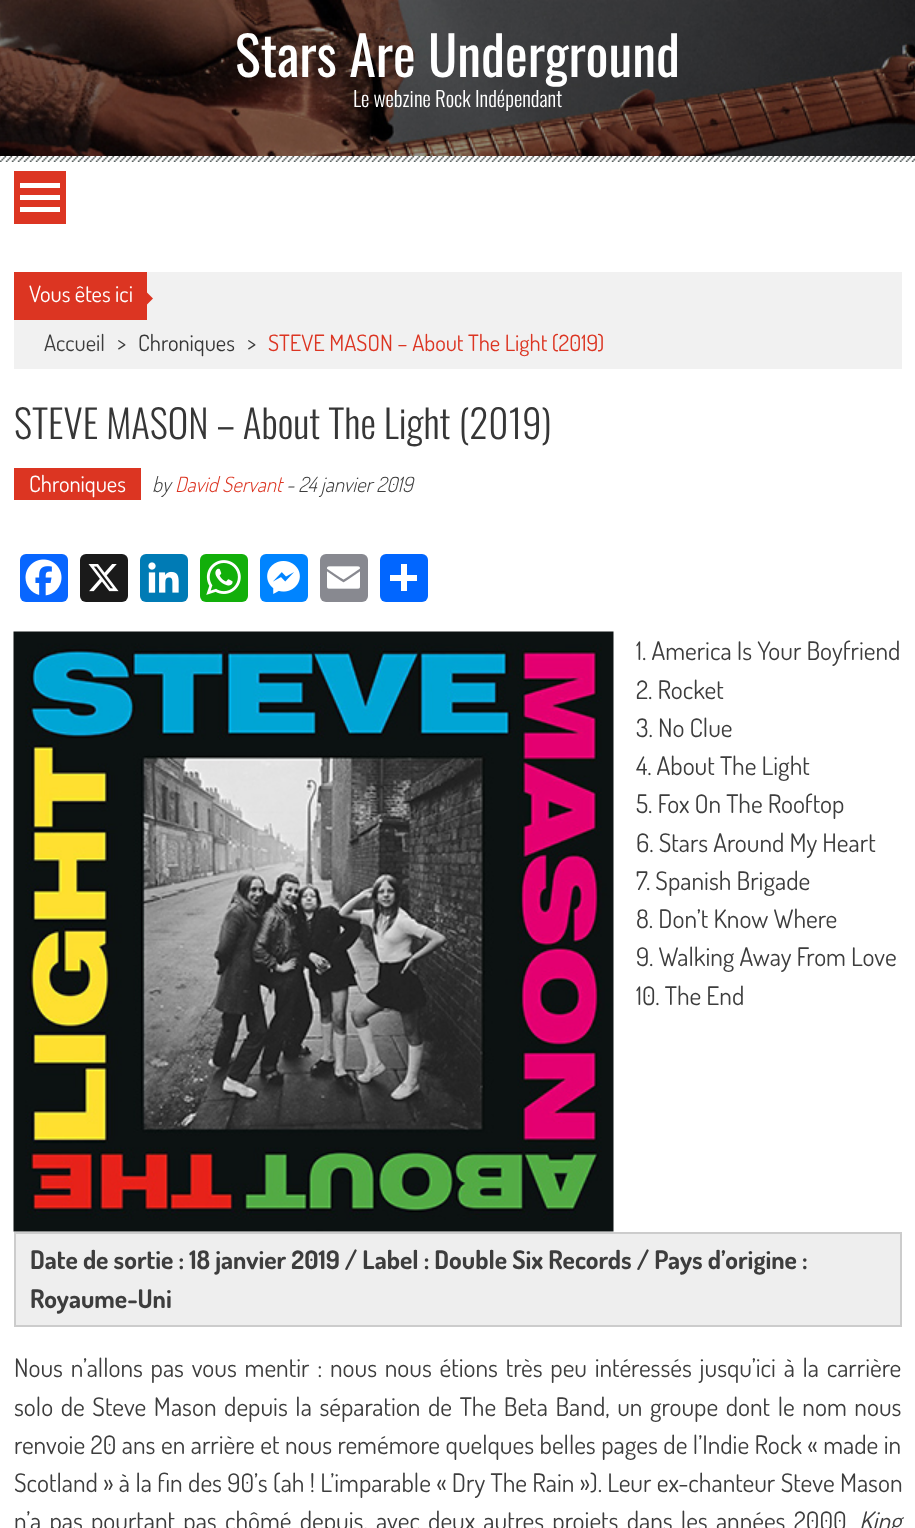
<!DOCTYPE html>
<meta charset="utf-8">
<style>body { margin: 0 } canvas { display: block }</style>
<canvas id="canvas" width="915" height="1528"></canvas>
<script type="module">
  const canvas = document.getElementById("canvas");
  const ctx = canvas.getContext("2d");
  ctx.miterLimit = 4;
  ctx.fontKerning = "normal";
  async function loadImage(src) {
    const img = new Image();
    img.src = src;
    await img.decode();
    return img;
  }

  ctx.fillStyle = "#ffffff";
  ctx.fillRect(0, 0, 915, 1528);
  ctx.drawImage(await loadImage("img1.png"), 0, 0, 915, 156);
  ctx.drawImage(await loadImage("img2.png"), 0, 156, 915, 6);
  ctx.font = "54px Oswald";
  ctx.fillText("Stars Are Underground", 235, 77);
  ctx.font = "300 21px Oswald";
  ctx.fillText("Le webzine Rock Indépendant", 353, 107);
  ctx.fillStyle = "#dc3522";
  ctx.fillRect(14, 171, 52, 53);
  ctx.fillStyle = "#ffffff";
  ctx.fillRect(20, 183, 40, 5);
  ctx.fillRect(20, 195, 40, 5);
  ctx.fillRect(20, 207, 40, 5);
  ctx.fillStyle = "#f1f1f1";
  ctx.fillRect(14, 272, 888, 97);
  ctx.fillStyle = "#dc3522";
  ctx.fillRect(14, 272, 133, 48);
  ctx.font = "22.5px Dosis";
  ctx.fillStyle = "#ffffff";
  ctx.fillText("Vous êtes ici", 29, 302);
  ctx.fillStyle = "#dc3522";
  ctx.beginPath();
  ctx.moveTo(145.5, 306);
  ctx.lineTo(145.5, 291);
  ctx.lineTo(153, 298.5);
  ctx.closePath();
  ctx.fill();
  ctx.fillStyle = "#3d3d3d";
  ctx.fillText("Accueil", 44, 351);
  ctx.fillText(">", 117, 351);
  ctx.fillStyle = "#363636";
  ctx.fillText("Chroniques", 138, 351);
  ctx.fillStyle = "#3d3d3d";
  ctx.fillText(">", 247, 351);
  ctx.fillStyle = "#dc3522";
  ctx.fillText("STEVE MASON – About The Light (2019)", 268, 351);
  ctx.font = "300 39px Oswald";
  ctx.fillStyle = "#363636";
  ctx.fillText("STEVE MASON – About The Light (2019)", 14, 439);
  ctx.fillStyle = "#dc3522";
  ctx.fillRect(14, 468, 127, 32);
  ctx.font = "22.5px Dosis";
  ctx.fillStyle = "#ffffff";
  ctx.fillText("Chroniques", 29, 492);
  ctx.font = "italic 300 21px Dosis";
  ctx.fillStyle = "#3d3d3d";
  ctx.fillText("by", 152, 492);
  ctx.fillStyle = "#dc3522";
  ctx.fillText("David Servant", 175, 492);
  ctx.fillStyle = "#3d3d3d";
  ctx.fillText("- 24 janvier 2019", 286, 492);
  ctx.fillStyle = "#0866ff";
  ctx.beginPath();
  ctx.roundRect(20, 554, 48, 48, 6);
  ctx.fill();
  ctx.drawImage(await loadImage("img3.png"), 25, 559, 37, 37);
  ctx.fillStyle = "#1a1a1a";
  ctx.beginPath();
  ctx.roundRect(80, 554, 48, 48, 6);
  ctx.fill();
  ctx.drawImage(await loadImage("img4.png"), 88, 564, 31, 28);
  ctx.fillStyle = "#007bb5";
  ctx.beginPath();
  ctx.roundRect(140, 554, 48, 48, 6);
  ctx.fill();
  ctx.drawImage(await loadImage("img5.png"), 148, 562, 31, 31);
  ctx.fillStyle = "#12af0a";
  ctx.beginPath();
  ctx.roundRect(200, 554, 48, 48, 6);
  ctx.fill();
  ctx.drawImage(await loadImage("img6.png"), 206, 560, 35, 35);
  ctx.fillStyle = "#0084ff";
  ctx.beginPath();
  ctx.roundRect(260, 554, 48, 48, 6);
  ctx.fill();
  ctx.drawImage(await loadImage("img7.png"), 267, 561, 33, 33);
  ctx.fillStyle = "#888990";
  ctx.beginPath();
  ctx.roundRect(320, 554, 48, 48, 6);
  ctx.fill();
  ctx.drawImage(await loadImage("img8.png"), 327, 566, 33, 23);
  ctx.fillStyle = "#0166ff";
  ctx.beginPath();
  ctx.roundRect(380, 554, 48, 48, 6);
  ctx.fill();
  ctx.fillStyle = "#ffffff";
  ctx.fillRect(401, 564, 6, 27);
  ctx.fillRect(390, 575, 27, 6);
  ctx.drawImage(await loadImage("img9.png"), 13, 631, 601, 601);
  ctx.font = "25.5px Dosis";
  ctx.fillStyle = "#3d3d3d";
  ctx.fillText("1. America Is Your Boyfriend", 636, 660);
  ctx.fillText("2. Rocket", 636, 699);
  ctx.fillText("3. No Clue", 636, 737);
  ctx.fillText("4. About The Light", 636, 775);
  ctx.fillText("5. Fox On The Rooftop", 636, 813);
  ctx.fillText("6. Stars Around My Heart", 636, 852);
  ctx.fillText("7. Spanish Brigade", 636, 890);
  ctx.fillText("8. Don’t Know Where", 636, 928);
  ctx.fillText("9. Walking Away From Love", 636, 966);
  ctx.fillText("10. The End", 636, 1005);
  ctx.fillStyle = "#eeeeee";
  ctx.fillRect(16, 1234, 884, 91);
  ctx.fillStyle = "#cccccc";
  ctx.fillRect(14, 1232, 888, 2);
  ctx.fillRect(900, 1232, 2, 94);
  ctx.fillRect(14, 1325, 888, 2);
  ctx.fillRect(14, 1232, 2, 94);
  ctx.font = "bold 25.5px Dosis";
  ctx.fillStyle = "#3d3d3d";
  ctx.fillText("Date de sortie : 18 janvier 2019 / Label : Double Six Records / Pays d’origine :", 30, 1269);
  ctx.fillText("Royaume-Uni", 30, 1308);
  ctx.wordSpacing = "2.6px";
  ctx.font = "25.5px Dosis";
  ctx.fillText("Nous n’allons pas vous mentir : nous nous étions très peu intéressés jusqu’ici à la carrière", 14, 1377);
  ctx.wordSpacing = "2.5px";
  ctx.fillText("solo de Steve Mason depuis la séparation de The Beta Band, un groupe dont le nom nous", 14, 1416);
  ctx.wordSpacing = "0.4px";
  ctx.fillText("renvoie 20 ans en arrière et nous remémore quelques belles pages de l’Indie Rock « made in", 14, 1454);
  ctx.wordSpacing = "0.25px";
  ctx.fillText("Scotland » à la fin des 90’s (ah ! L’imparable « Dry The Rain »). Leur ex-chanteur Steve Mason", 14, 1492);
  ctx.wordSpacing = "3.1px";
  ctx.fillText("n’a pas pourtant pas chômé depuis, avec deux autres projets dans les années 2000", 14, 1530);
  ctx.wordSpacing = "0px";
  ctx.font = "italic 25.5px Dosis";
  ctx.fillText("King", 859, 1530);
</script>
